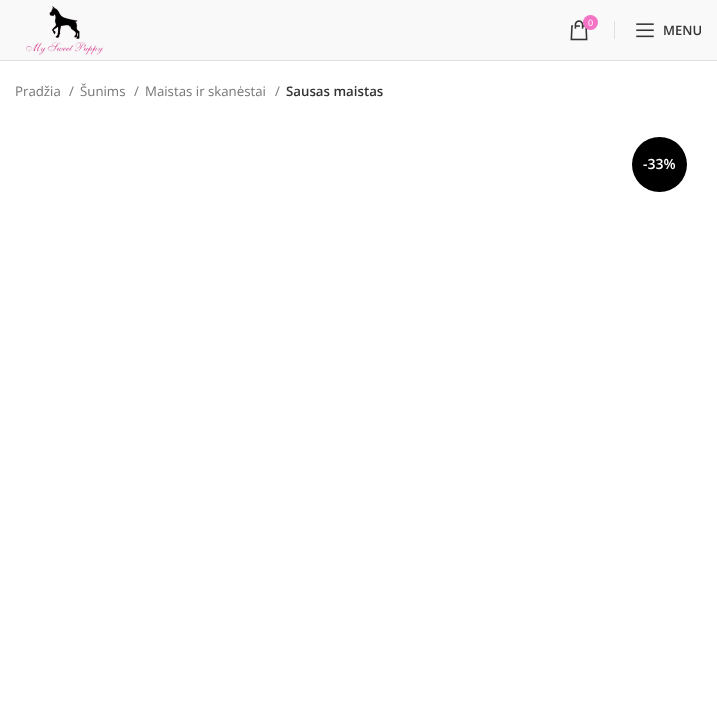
<!DOCTYPE html>
<meta charset="utf-8">
<style>body { margin: 0 } canvas { display: block }</style>
<canvas id="canvas" width="717" height="703"></canvas>
<script type="module">
  const canvas = document.getElementById("canvas");
  const ctx = canvas.getContext("2d");
  ctx.miterLimit = 4;
  ctx.fontKerning = "normal";
  async function loadImage(src) {
    const img = new Image();
    img.src = src;
    await img.decode();
    return img;
  }

  ctx.fillStyle = "#ffffff";
  ctx.fillRect(0, 0, 717, 703);
  ctx.fillStyle = "#f9f9f9";
  ctx.fillRect(0, 0, 717, 60);
  ctx.fillStyle = "#e1e1e1";
  ctx.fillRect(0, 60, 717, 1);
  ctx.drawImage(await loadImage("img1.png"), 26, 6, 77, 49);
  ctx.drawImage(await loadImage("img2.png"), 570, 20, 18, 21);
  ctx.fillStyle = "#f473c5";
  ctx.beginPath();
  ctx.arc(590.5, 22.5, 7.5, 0, Math.PI * 2);
  ctx.fill();
  ctx.font = "9px Open Sans";
  ctx.fillStyle = "#ffffff";
  ctx.fillText("0", 588, 26);
  ctx.fillStyle = "#dfdfdf";
  ctx.fillRect(614, 21, 1, 18);
  ctx.drawImage(await loadImage("img3.png"), 636, 23, 18, 15);
  ctx.font = "600 13px Open Sans";
  ctx.fillStyle = "#333333";
  ctx.fillText("MENU", 663, 35);
  ctx.font = "13.25px Open Sans";
  ctx.fillStyle = "#777777";
  ctx.fillText("Pradžia", 15, 96);
  ctx.fillText("/", 69, 96);
  ctx.fillText("Šunims", 80, 96);
  ctx.fillText("/", 134, 96);
  ctx.fillText("Maistas ir skanėstai", 145, 96);
  ctx.fillText("/", 275, 96);
  ctx.font = "600 13.25px Open Sans";
  ctx.fillStyle = "#333333";
  ctx.fillText("Sausas maistas", 286, 96);
  ctx.fillStyle = "#000000";
  ctx.beginPath();
  ctx.arc(659.5, 164.5, 27.5, 0, Math.PI * 2);
  ctx.fill();
  ctx.font = "600 14px Open Sans";
  ctx.fillStyle = "#ffffff";
  ctx.fillText("-33%", 643, 169);
</script>
